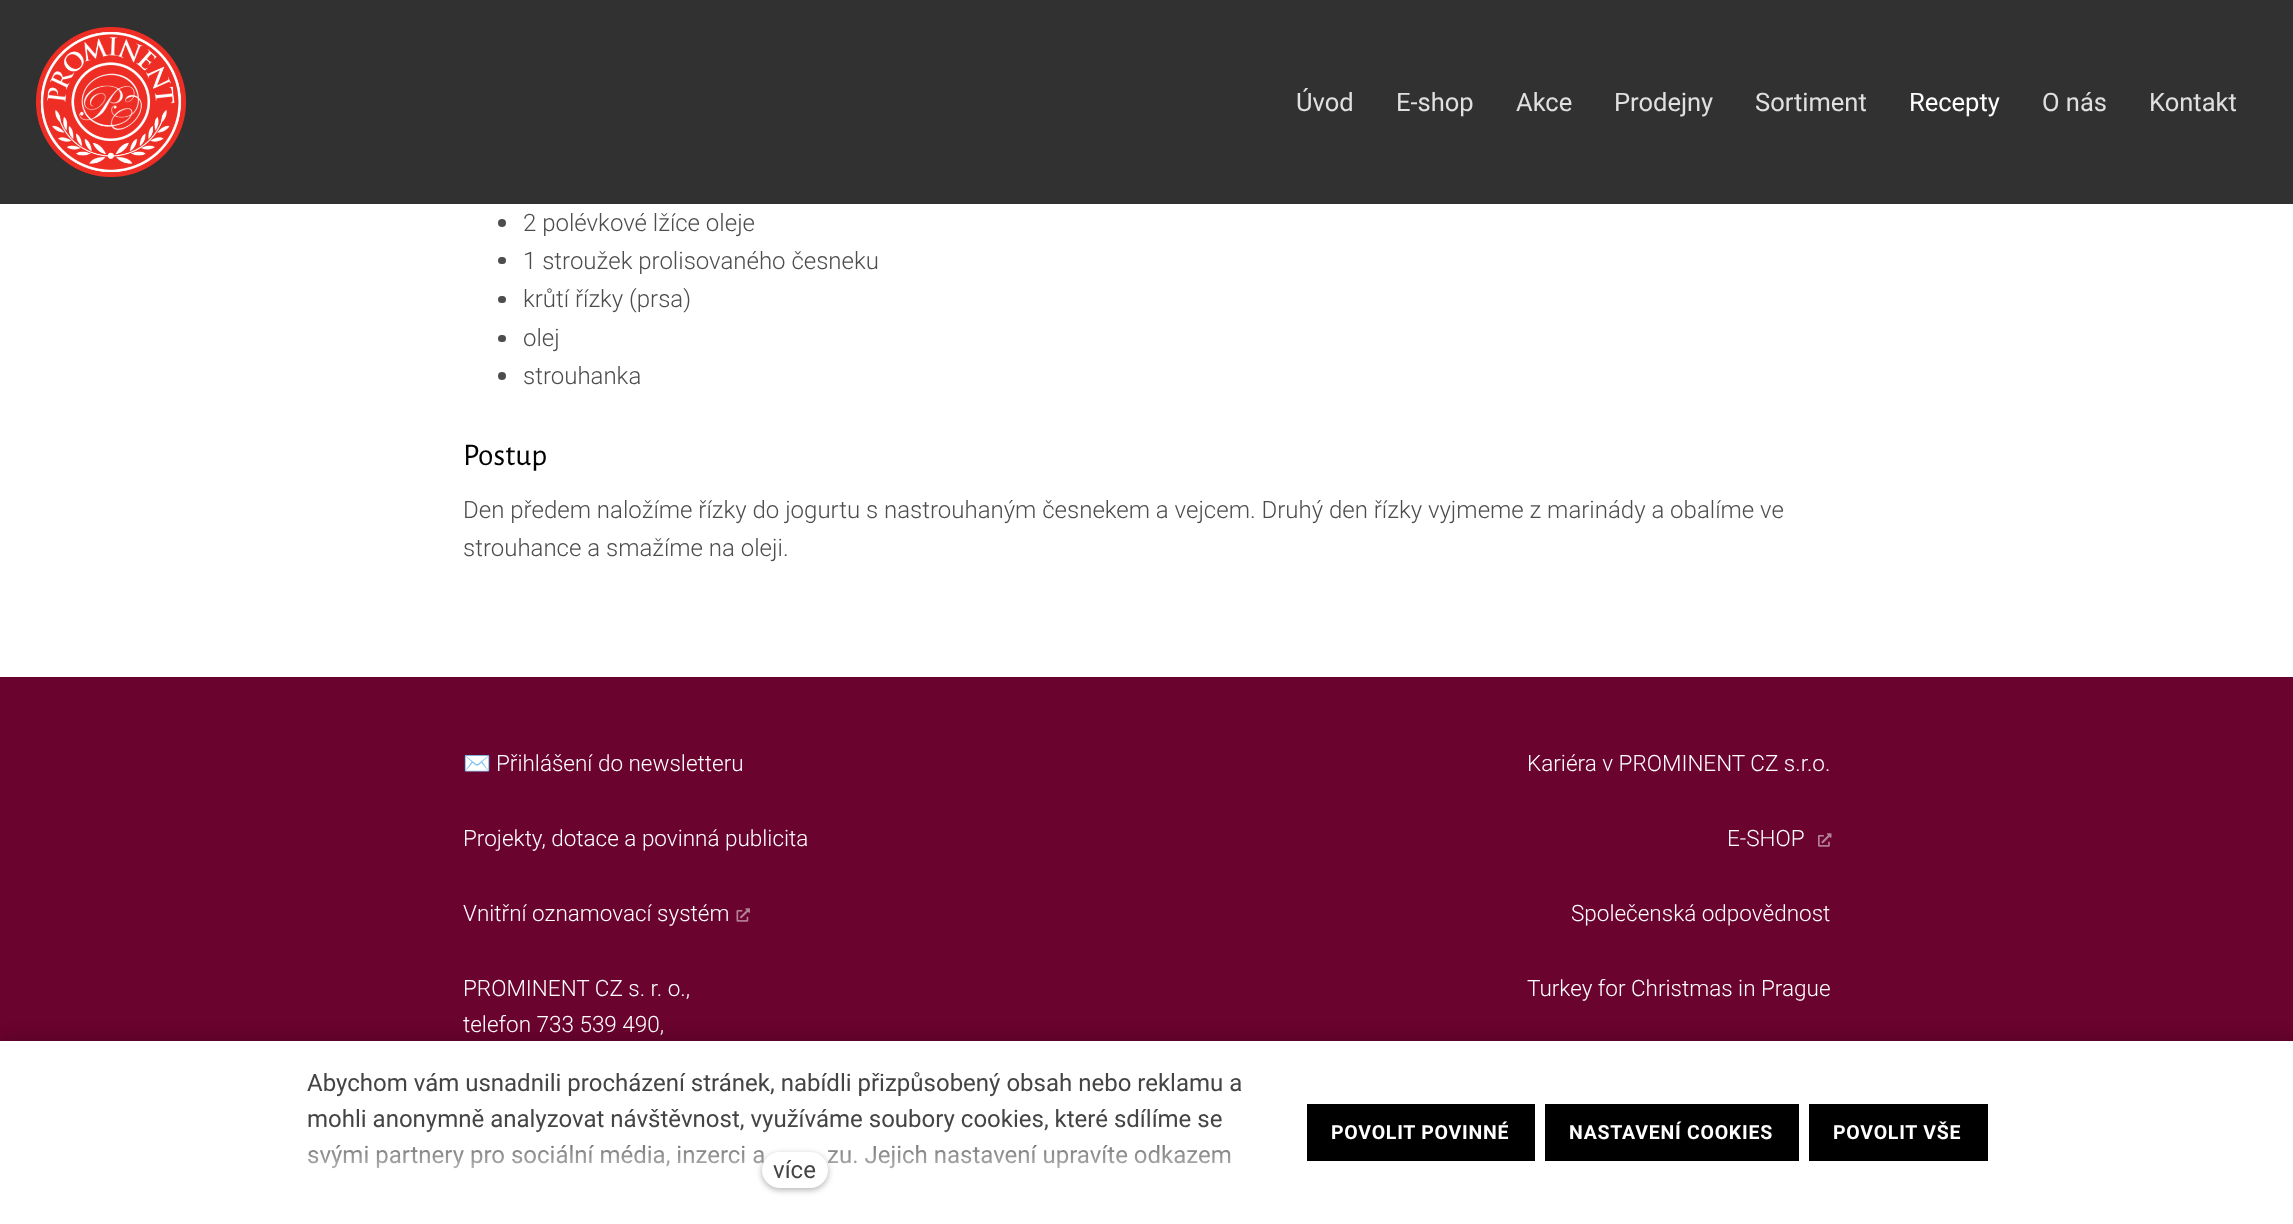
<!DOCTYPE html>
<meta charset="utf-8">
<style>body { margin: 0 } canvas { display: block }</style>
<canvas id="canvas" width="2293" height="1224"></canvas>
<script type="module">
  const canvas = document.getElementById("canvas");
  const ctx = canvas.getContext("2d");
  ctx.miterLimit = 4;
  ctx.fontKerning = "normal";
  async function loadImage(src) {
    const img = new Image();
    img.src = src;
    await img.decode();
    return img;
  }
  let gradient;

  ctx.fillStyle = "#ffffff";
  ctx.fillRect(0, 0, 2293, 1224);
  ctx.fillStyle = "#323132";
  ctx.fillRect(0, 0, 2293, 204);
  ctx.drawImage(await loadImage("img1.png"), 36, 27, 150, 150);
  ctx.font = "25.5px Roboto";
  ctx.fillStyle = "#e0e0e0";
  ctx.fillText("Úvod", 1296, 111);
  ctx.fillText("E-shop", 1396, 111);
  ctx.fillText("Akce", 1516, 111);
  ctx.fillText("Prodejny", 1614, 111);
  ctx.fillText("Sortiment", 1755, 111);
  ctx.fillStyle = "#ffffff";
  ctx.fillText("Recepty", 1909, 111);
  ctx.fillStyle = "#e0e0e0";
  ctx.fillText("O nás", 2042, 111);
  ctx.fillText("Kontakt", 2149, 111);
  ctx.fillStyle = "#4d4d4d";
  ctx.beginPath();
  ctx.arc(502, 223, 4, 0, Math.PI * 2);
  ctx.fill();
  ctx.font = "300 24px Roboto";
  ctx.fillText("2 polévkové lžíce oleje", 523, 231);
  ctx.beginPath();
  ctx.roundRect(498, 257, 8, 7, 3.5);
  ctx.fill();
  ctx.fillText("1 stroužek prolisovaného česneku", 523, 269);
  ctx.beginPath();
  ctx.roundRect(498, 296, 8, 7, 3.5);
  ctx.fill();
  ctx.fillText("krůtí řízky (prsa)", 523, 307);
  ctx.beginPath();
  ctx.roundRect(498, 335, 8, 7, 3.5);
  ctx.fill();
  ctx.fillText("olej", 523, 346);
  ctx.beginPath();
  ctx.arc(502, 376, 4, 0, Math.PI * 2);
  ctx.fill();
  ctx.fillText("strouhanka", 523, 384);
  ctx.font = "31.5px Alegreya Sans";
  ctx.fillStyle = "#000000";
  ctx.fillText("Postup", 463, 465);
  ctx.font = "300 24px Roboto";
  ctx.fillStyle = "#4d4d4d";
  ctx.fillText("Den předem naložíme řízky do jogurtu s nastrouhaným česnekem a vejcem. Druhý den řízky vyjmeme z marinády a obalíme ve", 463, 518);
  ctx.fillText("strouhance a smažíme na oleji.", 463, 556);
  ctx.fillStyle = "#6a032e";
  ctx.fillRect(0, 677, 2293, 364);
  ctx.font = "22.5px Noto Color Emoji";
  ctx.fillStyle = "#ffffff";
  ctx.fillText("✉️", 463, 771);
  ctx.font = "300 22.5px Roboto";
  ctx.fillText("Přihlášení do newsletteru", 496, 771);
  ctx.fillText("Projekty, dotace a povinná publicita", 463, 846);
  ctx.fillText("Vnitřní oznamovací systém", 463, 921);
  ctx.drawImage(await loadImage("img2.png"), 736, 908, 14, 14);
  ctx.fillText("Kariéra v PROMINENT CZ s.r.o.", 1527, 771);
  ctx.fillText("E-SHOP", 1727, 846);
  ctx.drawImage(await loadImage("img3.png"), 1818, 833, 14, 14);
  ctx.fillText("Společenská odpovědnost", 1571, 921);
  ctx.fillText("PROMINENT CZ s. r. o.,", 463, 996);
  ctx.fillText("telefon 733 539 490,", 463, 1032);
  ctx.fillText("Turkey for Christmas in Prague", 1527, 996);
  ctx.fillStyle = "rgba(0, 0, 0, 0.25)";
  ctx.filter = "blur(9px)";
  ctx.beginPath();
  ctx.rect(0, 1041, 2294, 183);
  ctx.fill();
  ctx.filter = "none";
  ctx.fillStyle = "#ffffff";
  ctx.fillRect(0, 1041, 2293, 183);
  ctx.font = "24px Roboto";
  ctx.fillStyle = "#444444";
  ctx.fillText("Abychom vám usnadnili procházení stránek, nabídli přizpůsobený obsah nebo reklamu a", 307, 1091);
  ctx.fillText("mohli anonymně analyzovat návštěvnost, využíváme soubory cookies, které sdílíme se", 307, 1127);
  ctx.fillText("svými partnery pro sociální média, inzerci a", 307, 1163);
  ctx.fillText("zu. Jejich nastavení upravíte odkazem", 827, 1163);
  gradient = ctx.createLinearGradient(795, 1200, 795, 1124);
  gradient.addColorStop(0, "#ffffff");
  gradient.addColorStop(1, "rgba(255, 255, 255, 0)");
  ctx.fillStyle = gradient;
  ctx.fillRect(308, 1126, 923, 43);
  ctx.fillStyle = "rgba(0, 0, 0, 0.3)";
  ctx.filter = "blur(3px)";
  ctx.beginPath();
  ctx.roundRect(762, 1154, 66, 36, 18);
  ctx.fill();
  ctx.filter = "none";
  ctx.fillStyle = "#ffffff";
  ctx.beginPath();
  ctx.roundRect(762, 1152, 66, 36, 18);
  ctx.fill();
  ctx.fillStyle = "#444444";
  ctx.fillText("více", 773, 1178);
  ctx.fillStyle = "#000000";
  ctx.fillRect(1307, 1104, 228, 57);
  ctx.letterSpacing = "0.75px";
  ctx.font = "bold 19.5px Roboto";
  ctx.fillStyle = "#ffffff";
  ctx.fillText("POVOLIT POVINNÉ", 1331, 1139);
  ctx.fillStyle = "#000000";
  ctx.fillRect(1545, 1104, 254, 57);
  ctx.fillStyle = "#ffffff";
  ctx.fillText("NASTAVENÍ COOKIES", 1569, 1139);
  ctx.fillStyle = "#000000";
  ctx.fillRect(1809, 1104, 179, 57);
  ctx.fillStyle = "#ffffff";
  ctx.fillText("POVOLIT VŠE", 1833, 1139);
</script>
